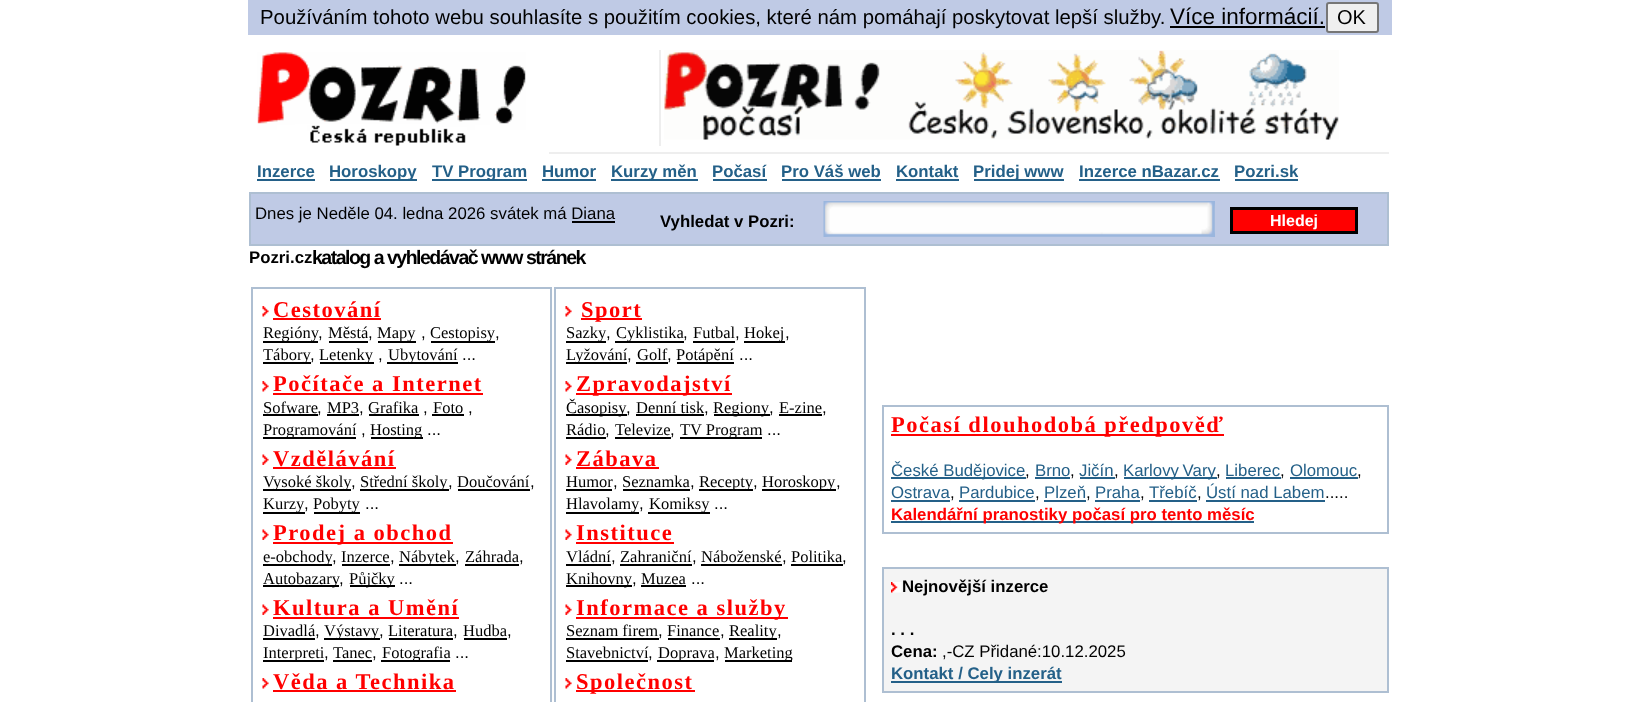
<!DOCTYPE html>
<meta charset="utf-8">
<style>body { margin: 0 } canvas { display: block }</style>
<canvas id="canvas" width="1637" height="702"></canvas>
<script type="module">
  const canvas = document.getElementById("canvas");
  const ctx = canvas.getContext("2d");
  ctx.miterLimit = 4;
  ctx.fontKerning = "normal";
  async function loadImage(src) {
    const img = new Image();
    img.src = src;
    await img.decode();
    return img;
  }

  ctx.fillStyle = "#ffffff";
  ctx.fillRect(0, 0, 1637, 702);
  ctx.fillStyle = "#bfcae5";
  ctx.fillRect(248, 0, 1144, 35);
  ctx.font = "20.35px Liberation Sans";
  ctx.fillStyle = "#000000";
  ctx.fillText("Používáním tohoto webu souhlasíte s použitím cookies, které nám pomáhají poskytovat lepší služby.", 260, 24);
  ctx.font = "22.5px Liberation Sans";
  ctx.fillText("Více informácií.", 1170, 24);
  ctx.fillRect(1170, 26, 155, 2);
  ctx.fillStyle = "#efefef";
  ctx.beginPath();
  ctx.roundRect(1327, 3, 51, 29, 2);
  ctx.fill();
  ctx.strokeStyle = "#767676";
  ctx.lineWidth = 2;
  ctx.stroke();
  ctx.font = "20px Liberation Sans";
  ctx.fillStyle = "#000000";
  ctx.fillText("OK", 1337, 24);
  ctx.drawImage(await loadImage("img1.png"), 257, 52, 269, 94);
  ctx.fillStyle = "#eeeeee";
  ctx.fillRect(549, 152, 840, 2);
  ctx.fillRect(659, 50, 2, 96);
  ctx.drawImage(await loadImage("img2.png"), 664, 50, 675, 90);
  ctx.font = "bold 16.8px Liberation Sans";
  ctx.fillStyle = "#246088";
  ctx.fillText("Inzerce", 257, 177);
  ctx.fillRect(257, 179, 58, 2);
  ctx.fillRect(330, 179, 87, 2);
  ctx.fillText("Horoskopy", 329, 177);
  ctx.fillRect(432, 179, 95, 2);
  ctx.fillText("TV Program", 432, 177);
  ctx.fillText("Humor", 542, 177);
  ctx.fillRect(542, 179, 54, 2);
  ctx.fillRect(611, 179, 87, 2);
  ctx.fillText("Kurzy měn", 611, 177);
  ctx.fillText("Počasí", 712, 177);
  ctx.fillRect(713, 179, 54, 2);
  ctx.fillText("Pro Váš web", 781, 177);
  ctx.fillRect(782, 179, 99, 2);
  ctx.fillText("Kontakt", 896, 177);
  ctx.fillRect(896, 179, 63, 2);
  ctx.fillRect(974, 179, 90, 2);
  ctx.fillText("Pridej www", 973, 177);
  ctx.fillText("Inzerce nBazar.cz", 1079, 177);
  ctx.fillRect(1079, 179, 141, 2);
  ctx.fillText("Pozri.sk", 1234, 177);
  ctx.fillRect(1235, 179, 63, 2);
  ctx.fillStyle = "#bfcae5";
  ctx.beginPath();
  ctx.rect(250, 193, 1138, 52);
  ctx.fill();
  ctx.strokeStyle = "#aebfd2";
  ctx.stroke();
  ctx.font = "16.8px Liberation Sans";
  ctx.fillStyle = "#000000";
  ctx.fillText("Dnes je Neděle 04. ledna 2026 svátek má Diana", 255, 219);
  ctx.fillRect(572, 221, 43, 2);
  ctx.font = "bold 16.8px Liberation Sans";
  ctx.fillText("Vyhledat v Pozri:", 660, 227);
  ctx.drawImage(await loadImage("img3.png"), 823, 201, 392, 36);
  ctx.fillStyle = "#ff0000";
  ctx.beginPath();
  ctx.rect(1231.5, 208.5, 125, 24);
  ctx.fill();
  ctx.strokeStyle = "#000000";
  ctx.lineWidth = 3;
  ctx.stroke();
  ctx.font = "bold 16px Liberation Sans";
  ctx.fillStyle = "#ffffff";
  ctx.fillText("Hledej", 1270, 226);
  ctx.font = "bold 16.8px Liberation Sans";
  ctx.fillStyle = "#000000";
  ctx.fillText("Pozri.cz", 249, 263);
  ctx.letterSpacing = "-1.5px";
  ctx.font = "bold 19.5px Liberation Sans";
  ctx.fillText("katalog a vyhledávač www stránek", 312, 264);
  ctx.strokeStyle = "#aebfd2";
  ctx.lineWidth = 2;
  ctx.strokeRect(252, 288, 299, 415);
  ctx.drawImage(await loadImage("img4.png"), 262, 306, 7, 11);
  ctx.letterSpacing = "1.5px";
  ctx.font = "bold 22.5px Liberation Serif";
  ctx.fillStyle = "#ff0000";
  ctx.fillText("Cestování", 273, 317);
  ctx.fillRect(273, 318, 108, 2);
  ctx.fillStyle = "#000000";
  ctx.fillRect(263, 341, 55, 2);
  ctx.letterSpacing = "0px";
  ctx.font = "16.5px Liberation Serif";
  ctx.fillText("Regióny", 263, 338);
  ctx.font = "16.8px Liberation Sans";
  ctx.fillText(",", 318, 338);
  ctx.font = "16.5px Liberation Serif";
  ctx.fillText("Městá", 328, 338);
  ctx.fillRect(329, 341, 39, 2);
  ctx.font = "16.8px Liberation Sans";
  ctx.fillText(",", 368, 338);
  ctx.fillRect(378, 341, 38, 2);
  ctx.font = "16.5px Liberation Serif";
  ctx.fillText("Mapy", 377, 338);
  ctx.font = "16.8px Liberation Sans";
  ctx.fillText(",", 421, 338);
  ctx.fillRect(431, 341, 64, 2);
  ctx.font = "16.5px Liberation Serif";
  ctx.fillText("Cestopisy", 430, 338);
  ctx.font = "16.8px Liberation Sans";
  ctx.fillText(",", 495, 338);
  ctx.fillRect(263, 362, 48, 2);
  ctx.font = "16.5px Liberation Serif";
  ctx.fillText("Tábory", 263, 360);
  ctx.font = "16.8px Liberation Sans";
  ctx.fillText(",", 310, 360);
  ctx.fillRect(320, 362, 54, 2);
  ctx.font = "16.5px Liberation Serif";
  ctx.fillText("Letenky", 319, 360);
  ctx.font = "16.8px Liberation Sans";
  ctx.fillText(",", 378, 360);
  ctx.fillRect(387, 362, 71, 2);
  ctx.font = "16.5px Liberation Serif";
  ctx.fillText("Ubytování", 388, 360);
  ctx.font = "16.8px Liberation Sans";
  ctx.fillText("...", 462, 360);
  ctx.drawImage(await loadImage("img4.png"), 262, 381, 7, 11);
  ctx.letterSpacing = "1.5px";
  ctx.font = "bold 22.5px Liberation Serif";
  ctx.fillStyle = "#ff0000";
  ctx.fillText("Počítače a Internet", 273, 391);
  ctx.fillRect(273, 393, 210, 2);
  ctx.letterSpacing = "0px";
  ctx.font = "16.5px Liberation Serif";
  ctx.fillStyle = "#000000";
  ctx.fillText("Sofware", 263, 413);
  ctx.fillRect(263, 414, 55, 2);
  ctx.font = "16.8px Liberation Sans";
  ctx.fillText(",", 317, 413);
  ctx.font = "16.5px Liberation Serif";
  ctx.fillText("MP3", 327, 413);
  ctx.fillRect(327, 414, 32, 2);
  ctx.font = "16.8px Liberation Sans";
  ctx.fillText(",", 359, 413);
  ctx.font = "16.5px Liberation Serif";
  ctx.fillText("Grafika", 368, 413);
  ctx.fillRect(369, 414, 50, 2);
  ctx.font = "16.8px Liberation Sans";
  ctx.fillText(",", 423, 413);
  ctx.font = "16.5px Liberation Serif";
  ctx.fillText("Foto", 433, 413);
  ctx.fillRect(432, 414, 32, 2);
  ctx.font = "16.8px Liberation Sans";
  ctx.fillText(",", 468, 413);
  ctx.fillRect(263, 437, 93, 2);
  ctx.font = "16.5px Liberation Serif";
  ctx.fillText("Programování", 263, 435);
  ctx.font = "16.8px Liberation Sans";
  ctx.fillText(",", 361, 435);
  ctx.fillRect(371, 437, 52, 2);
  ctx.font = "16.5px Liberation Serif";
  ctx.fillText("Hosting", 370, 435);
  ctx.font = "16.8px Liberation Sans";
  ctx.fillText("...", 427, 435);
  ctx.drawImage(await loadImage("img5.png"), 262, 454, 7, 11);
  ctx.letterSpacing = "1.5px";
  ctx.font = "bold 22.5px Liberation Serif";
  ctx.fillStyle = "#ff0000";
  ctx.fillText("Vzdělávání", 273, 466);
  ctx.fillRect(273, 467, 123, 2);
  ctx.fillStyle = "#000000";
  ctx.fillRect(263, 489, 88, 2);
  ctx.letterSpacing = "0px";
  ctx.font = "16.5px Liberation Serif";
  ctx.fillText("Vysoké školy", 263, 487);
  ctx.font = "16.8px Liberation Sans";
  ctx.fillText(",", 351, 487);
  ctx.fillRect(360, 489, 89, 2);
  ctx.font = "16.5px Liberation Serif";
  ctx.fillText("Střední školy", 360, 487);
  ctx.font = "16.8px Liberation Sans";
  ctx.fillText(",", 448, 487);
  ctx.font = "16.5px Liberation Serif";
  ctx.fillText("Doučování", 457, 487);
  ctx.fillRect(458, 489, 72, 2);
  ctx.font = "16.8px Liberation Sans";
  ctx.fillText(",", 530, 487);
  ctx.fillRect(263, 512, 42, 2);
  ctx.font = "16.5px Liberation Serif";
  ctx.fillText("Kurzy", 263, 509);
  ctx.font = "16.8px Liberation Sans";
  ctx.fillText(",", 304, 509);
  ctx.fillRect(314, 512, 46, 2);
  ctx.font = "16.5px Liberation Serif";
  ctx.fillText("Pobyty", 313, 509);
  ctx.font = "16.8px Liberation Sans";
  ctx.fillText("...", 365, 509);
  ctx.drawImage(await loadImage("img5.png"), 262, 529, 7, 11);
  ctx.fillStyle = "#ff0000";
  ctx.fillRect(273, 542, 180, 2);
  ctx.letterSpacing = "1.5px";
  ctx.font = "bold 22.5px Liberation Serif";
  ctx.fillText("Prodej a obchod", 273, 540);
  ctx.fillStyle = "#000000";
  ctx.fillRect(263, 564, 69, 2);
  ctx.letterSpacing = "0px";
  ctx.font = "16.5px Liberation Serif";
  ctx.fillText("e-obchody", 263, 562);
  ctx.font = "16.8px Liberation Sans";
  ctx.fillText(",", 332, 562);
  ctx.font = "16.5px Liberation Serif";
  ctx.fillText("Inzerce", 341, 562);
  ctx.fillRect(342, 564, 48, 2);
  ctx.font = "16.8px Liberation Sans";
  ctx.fillText(",", 390, 562);
  ctx.fillRect(399, 564, 57, 2);
  ctx.font = "16.5px Liberation Serif";
  ctx.fillText("Nábytek", 399, 562);
  ctx.font = "16.8px Liberation Sans";
  ctx.fillText(",", 455, 562);
  ctx.font = "16.5px Liberation Serif";
  ctx.fillText("Záhrada", 465, 562);
  ctx.fillRect(465, 564, 54, 2);
  ctx.font = "16.8px Liberation Sans";
  ctx.fillText(",", 519, 562);
  ctx.fillRect(263, 585, 76, 2);
  ctx.font = "16.5px Liberation Serif";
  ctx.fillText("Autobazary", 263, 584);
  ctx.font = "16.8px Liberation Sans";
  ctx.fillText(",", 339, 584);
  ctx.fillRect(350, 585, 45, 2);
  ctx.font = "16.5px Liberation Serif";
  ctx.fillText("Půjčky", 349, 584);
  ctx.font = "16.8px Liberation Sans";
  ctx.fillText("...", 399, 584);
  ctx.drawImage(await loadImage("img5.png"), 262, 604, 7, 11);
  ctx.letterSpacing = "1.5px";
  ctx.font = "bold 22.5px Liberation Serif";
  ctx.fillStyle = "#ff0000";
  ctx.fillText("Kultura a Umění", 273, 615);
  ctx.fillRect(273, 617, 186, 2);
  ctx.letterSpacing = "0px";
  ctx.font = "16.5px Liberation Serif";
  ctx.fillStyle = "#000000";
  ctx.fillText("Divadlá", 263, 636);
  ctx.fillRect(263, 638, 52, 2);
  ctx.font = "16.8px Liberation Sans";
  ctx.fillText(",", 315, 636);
  ctx.fillRect(324, 638, 56, 2);
  ctx.font = "16.5px Liberation Serif";
  ctx.fillText("Výstavy", 324, 636);
  ctx.font = "16.8px Liberation Sans";
  ctx.fillText(",", 379, 636);
  ctx.font = "16.5px Liberation Serif";
  ctx.fillText("Literatura", 388, 636);
  ctx.fillRect(389, 638, 64, 2);
  ctx.font = "16.8px Liberation Sans";
  ctx.fillText(",", 453, 636);
  ctx.font = "16.5px Liberation Serif";
  ctx.fillText("Hudba", 463, 636);
  ctx.fillRect(464, 638, 43, 2);
  ctx.font = "16.8px Liberation Sans";
  ctx.fillText(",", 507, 636);
  ctx.fillRect(263, 660, 61, 2);
  ctx.font = "16.5px Liberation Serif";
  ctx.fillText("Interpreti", 263, 658);
  ctx.font = "16.8px Liberation Sans";
  ctx.fillText(",", 324, 658);
  ctx.font = "16.5px Liberation Serif";
  ctx.fillText("Tanec", 333, 658);
  ctx.fillRect(333, 660, 39, 2);
  ctx.font = "16.8px Liberation Sans";
  ctx.fillText(",", 372, 658);
  ctx.fillRect(381, 660, 69, 2);
  ctx.font = "16.5px Liberation Serif";
  ctx.fillText("Fotografia", 382, 658);
  ctx.font = "16.8px Liberation Sans";
  ctx.fillText("...", 455, 658);
  ctx.drawImage(await loadImage("img4.png"), 262, 678, 7, 11);
  ctx.letterSpacing = "1.5px";
  ctx.font = "bold 22.5px Liberation Serif";
  ctx.fillStyle = "#ff0000";
  ctx.fillText("Věda a Technika", 273, 689);
  ctx.fillRect(273, 690, 183, 2);
  ctx.strokeRect(555, 288, 310, 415);
  ctx.drawImage(await loadImage("img4.png"), 565, 306, 7, 11);
  ctx.fillRect(581, 318, 61, 2);
  ctx.fillText("Sport", 581, 317);
  ctx.fillStyle = "#000000";
  ctx.fillRect(566, 341, 40, 2);
  ctx.letterSpacing = "0px";
  ctx.font = "16.5px Liberation Serif";
  ctx.fillText("Sazky", 566, 338);
  ctx.font = "16.8px Liberation Sans";
  ctx.fillText(",", 606, 338);
  ctx.fillRect(615, 341, 69, 2);
  ctx.font = "16.5px Liberation Serif";
  ctx.fillText("Cyklistika", 616, 338);
  ctx.font = "16.8px Liberation Sans";
  ctx.fillText(",", 683, 338);
  ctx.font = "16.5px Liberation Serif";
  ctx.fillText("Futbal", 693, 338);
  ctx.fillRect(693, 341, 42, 2);
  ctx.font = "16.8px Liberation Sans";
  ctx.fillText(",", 735, 338);
  ctx.fillRect(744, 341, 41, 2);
  ctx.font = "16.5px Liberation Serif";
  ctx.fillText("Hokej", 744, 338);
  ctx.font = "16.8px Liberation Sans";
  ctx.fillText(",", 785, 338);
  ctx.fillRect(566, 362, 61, 2);
  ctx.font = "16.5px Liberation Serif";
  ctx.fillText("Lyžování", 566, 360);
  ctx.font = "16.8px Liberation Sans";
  ctx.fillText(",", 627, 360);
  ctx.font = "16.5px Liberation Serif";
  ctx.fillText("Golf", 637, 360);
  ctx.fillRect(636, 362, 32, 2);
  ctx.font = "16.8px Liberation Sans";
  ctx.fillText(",", 667, 360);
  ctx.fillRect(677, 362, 57, 2);
  ctx.font = "16.5px Liberation Serif";
  ctx.fillText("Potápění", 676, 360);
  ctx.font = "16.8px Liberation Sans";
  ctx.fillText("...", 739, 360);
  ctx.drawImage(await loadImage("img4.png"), 565, 381, 7, 11);
  ctx.fillStyle = "#ff0000";
  ctx.fillRect(576, 393, 156, 2);
  ctx.letterSpacing = "1.5px";
  ctx.font = "bold 22.5px Liberation Serif";
  ctx.fillText("Zpravodajství", 576, 391);
  ctx.fillStyle = "#000000";
  ctx.fillRect(566, 414, 61, 2);
  ctx.letterSpacing = "0px";
  ctx.font = "16.5px Liberation Serif";
  ctx.fillText("Časopisy", 566, 413);
  ctx.font = "16.8px Liberation Sans";
  ctx.fillText(",", 626, 413);
  ctx.font = "16.5px Liberation Serif";
  ctx.fillText("Denní tisk", 636, 413);
  ctx.fillRect(636, 414, 68, 2);
  ctx.font = "16.8px Liberation Sans";
  ctx.fillText(",", 704, 413);
  ctx.fillRect(714, 414, 56, 2);
  ctx.font = "16.5px Liberation Serif";
  ctx.fillText("Regiony", 713, 413);
  ctx.font = "16.8px Liberation Sans";
  ctx.fillText(",", 769, 413);
  ctx.font = "16.5px Liberation Serif";
  ctx.fillText("E-zine", 779, 413);
  ctx.fillRect(779, 414, 43, 2);
  ctx.font = "16.8px Liberation Sans";
  ctx.fillText(",", 822, 413);
  ctx.font = "16.5px Liberation Serif";
  ctx.fillText("Rádio", 566, 435);
  ctx.fillRect(566, 437, 40, 2);
  ctx.font = "16.8px Liberation Sans";
  ctx.fillText(",", 605, 435);
  ctx.font = "16.5px Liberation Serif";
  ctx.fillText("Televize", 615, 435);
  ctx.fillRect(615, 437, 56, 2);
  ctx.font = "16.8px Liberation Sans";
  ctx.fillText(",", 670, 435);
  ctx.fillRect(680, 437, 82, 2);
  ctx.font = "16.5px Liberation Serif";
  ctx.fillText("TV Program", 680, 435);
  ctx.font = "16.8px Liberation Sans";
  ctx.fillText("...", 767, 435);
  ctx.drawImage(await loadImage("img5.png"), 565, 454, 7, 11);
  ctx.letterSpacing = "1.5px";
  ctx.font = "bold 22.5px Liberation Serif";
  ctx.fillStyle = "#ff0000";
  ctx.fillText("Zábava", 576, 466);
  ctx.fillRect(576, 467, 83, 2);
  ctx.letterSpacing = "0px";
  ctx.font = "16.5px Liberation Serif";
  ctx.fillStyle = "#000000";
  ctx.fillText("Humor", 566, 487);
  ctx.fillRect(566, 489, 46, 2);
  ctx.font = "16.8px Liberation Sans";
  ctx.fillText(",", 613, 487);
  ctx.font = "16.5px Liberation Serif";
  ctx.fillText("Seznamka", 622, 487);
  ctx.fillRect(623, 489, 67, 2);
  ctx.font = "16.8px Liberation Sans";
  ctx.fillText(",", 690, 487);
  ctx.fillRect(699, 489, 54, 2);
  ctx.font = "16.5px Liberation Serif";
  ctx.fillText("Recepty", 699, 487);
  ctx.font = "16.8px Liberation Sans";
  ctx.fillText(",", 753, 487);
  ctx.fillRect(762, 489, 74, 2);
  ctx.font = "16.5px Liberation Serif";
  ctx.fillText("Horoskopy", 762, 487);
  ctx.font = "16.8px Liberation Sans";
  ctx.fillText(",", 836, 487);
  ctx.fillRect(566, 512, 73, 2);
  ctx.font = "16.5px Liberation Serif";
  ctx.fillText("Hlavolamy", 566, 509);
  ctx.font = "16.8px Liberation Sans";
  ctx.fillText(",", 639, 509);
  ctx.fillRect(648, 512, 62, 2);
  ctx.font = "16.5px Liberation Serif";
  ctx.fillText("Komiksy", 649, 509);
  ctx.font = "16.8px Liberation Sans";
  ctx.fillText("...", 714, 509);
  ctx.drawImage(await loadImage("img5.png"), 565, 529, 7, 11);
  ctx.letterSpacing = "1.5px";
  ctx.font = "bold 22.5px Liberation Serif";
  ctx.fillStyle = "#ff0000";
  ctx.fillText("Instituce", 576, 540);
  ctx.fillRect(576, 542, 98, 2);
  ctx.letterSpacing = "0px";
  ctx.font = "16.5px Liberation Serif";
  ctx.fillStyle = "#000000";
  ctx.fillText("Vládní", 566, 562);
  ctx.fillRect(566, 564, 45, 2);
  ctx.font = "16.8px Liberation Sans";
  ctx.fillText(",", 611, 562);
  ctx.font = "16.5px Liberation Serif";
  ctx.fillText("Zahraniční", 620, 562);
  ctx.fillRect(620, 564, 72, 2);
  ctx.font = "16.8px Liberation Sans";
  ctx.fillText(",", 692, 562);
  ctx.font = "16.5px Liberation Serif";
  ctx.fillText("Náboženské", 701, 562);
  ctx.fillRect(701, 564, 81, 2);
  ctx.font = "16.8px Liberation Sans";
  ctx.fillText(",", 782, 562);
  ctx.font = "16.5px Liberation Serif";
  ctx.fillText("Politika", 791, 562);
  ctx.fillRect(791, 564, 52, 2);
  ctx.font = "16.8px Liberation Sans";
  ctx.fillText(",", 842, 562);
  ctx.fillRect(566, 585, 66, 2);
  ctx.font = "16.5px Liberation Serif";
  ctx.fillText("Knihovny", 566, 584);
  ctx.font = "16.8px Liberation Sans";
  ctx.fillText(",", 632, 584);
  ctx.font = "16.5px Liberation Serif";
  ctx.fillText("Muzea", 641, 584);
  ctx.fillRect(641, 585, 45, 2);
  ctx.font = "16.8px Liberation Sans";
  ctx.fillText("...", 691, 584);
  ctx.drawImage(await loadImage("img5.png"), 565, 604, 7, 11);
  ctx.fillStyle = "#ff0000";
  ctx.fillRect(576, 617, 212, 2);
  ctx.letterSpacing = "1.5px";
  ctx.font = "bold 22.5px Liberation Serif";
  ctx.fillText("Informace a služby", 576, 615);
  ctx.letterSpacing = "0px";
  ctx.font = "16.5px Liberation Serif";
  ctx.fillStyle = "#000000";
  ctx.fillText("Seznam firem", 566, 636);
  ctx.fillRect(566, 638, 93, 2);
  ctx.font = "16.8px Liberation Sans";
  ctx.fillText(",", 658, 636);
  ctx.font = "16.5px Liberation Serif";
  ctx.fillText("Finance", 667, 636);
  ctx.fillRect(668, 638, 52, 2);
  ctx.font = "16.8px Liberation Sans";
  ctx.fillText(",", 720, 636);
  ctx.fillRect(729, 638, 48, 2);
  ctx.font = "16.5px Liberation Serif";
  ctx.fillText("Reality", 729, 636);
  ctx.font = "16.8px Liberation Sans";
  ctx.fillText(",", 777, 636);
  ctx.font = "16.5px Liberation Serif";
  ctx.fillText("Stavebnictví", 566, 658);
  ctx.fillRect(566, 660, 82, 2);
  ctx.font = "16.8px Liberation Sans";
  ctx.fillText(",", 648, 658);
  ctx.fillRect(657, 660, 57, 2);
  ctx.font = "16.5px Liberation Serif";
  ctx.fillText("Doprava", 658, 658);
  ctx.font = "16.8px Liberation Sans";
  ctx.fillText(",", 715, 658);
  ctx.fillRect(725, 660, 67, 2);
  ctx.font = "16.5px Liberation Serif";
  ctx.fillText("Marketing", 724, 658);
  ctx.drawImage(await loadImage("img4.png"), 565, 678, 7, 11);
  ctx.fillStyle = "#ff0000";
  ctx.fillRect(576, 690, 119, 2);
  ctx.letterSpacing = "1.5px";
  ctx.font = "bold 22.5px Liberation Serif";
  ctx.fillText("Společnost", 576, 689);
  ctx.strokeRect(883, 406, 505, 127);
  ctx.fillRect(891, 434, 333, 2);
  ctx.fillText("Počasí dlouhodobá předpověď", 891, 432);
  ctx.fillStyle = "#246088";
  ctx.fillRect(891, 477, 135, 2);
  ctx.letterSpacing = "0px";
  ctx.font = "16.8px Liberation Sans";
  ctx.fillText("České Budějovice", 891, 476);
  ctx.fillStyle = "#000000";
  ctx.fillText(",", 1025, 476);
  ctx.fillStyle = "#246088";
  ctx.fillText("Brno", 1035, 476);
  ctx.fillRect(1035, 477, 35, 2);
  ctx.fillStyle = "#000000";
  ctx.fillText(",", 1070, 476);
  ctx.fillStyle = "#246088";
  ctx.fillText("Jičín", 1079, 476);
  ctx.fillRect(1080, 477, 35, 2);
  ctx.fillStyle = "#000000";
  ctx.fillText(",", 1114, 476);
  ctx.fillStyle = "#246088";
  ctx.fillRect(1124, 477, 93, 2);
  ctx.wordSpacing = "-1px";
  ctx.fillText("Karlovy Vary", 1123, 476);
  ctx.wordSpacing = "0px";
  ctx.fillStyle = "#000000";
  ctx.fillText(",", 1216, 476);
  ctx.fillStyle = "#246088";
  ctx.fillText("Liberec", 1225, 476);
  ctx.fillRect(1226, 477, 55, 2);
  ctx.fillStyle = "#000000";
  ctx.fillText(",", 1280, 476);
  ctx.fillStyle = "#246088";
  ctx.fillText("Olomouc", 1290, 476);
  ctx.fillRect(1290, 477, 68, 2);
  ctx.fillStyle = "#000000";
  ctx.fillText(",", 1357, 476);
  ctx.fillStyle = "#246088";
  ctx.fillText("Ostrava", 891, 498);
  ctx.fillRect(891, 500, 59, 2);
  ctx.fillStyle = "#000000";
  ctx.fillText(",", 950, 498);
  ctx.fillStyle = "#246088";
  ctx.fillText("Pardubice", 959, 498);
  ctx.fillRect(959, 500, 76, 2);
  ctx.fillStyle = "#000000";
  ctx.fillText(",", 1035, 498);
  ctx.fillStyle = "#246088";
  ctx.fillText("Plzeň", 1044, 498);
  ctx.fillRect(1044, 500, 42, 2);
  ctx.fillStyle = "#000000";
  ctx.fillText(",", 1086, 498);
  ctx.fillStyle = "#246088";
  ctx.fillText("Praha", 1095, 498);
  ctx.fillRect(1095, 500, 45, 2);
  ctx.fillStyle = "#000000";
  ctx.fillText(",", 1140, 498);
  ctx.fillStyle = "#246088";
  ctx.fillText("Třebíč", 1149, 498);
  ctx.fillRect(1149, 500, 48, 2);
  ctx.fillStyle = "#000000";
  ctx.fillText(",", 1197, 498);
  ctx.fillStyle = "#246088";
  ctx.fillText("Ústí nad Labem", 1206, 498);
  ctx.fillRect(1206, 500, 119, 2);
  ctx.fillStyle = "#000000";
  ctx.fillText(".....", 1325, 498);
  ctx.fillStyle = "#246088";
  ctx.fillRect(891, 521, 363, 2);
  ctx.font = "bold 16.8px Liberation Sans";
  ctx.fillStyle = "#ff0000";
  ctx.fillText("Kalendářní pranostiky počasí pro tento měsíc", 891, 520);
  ctx.fillStyle = "#f4f4f4";
  ctx.beginPath();
  ctx.rect(883, 568, 505, 124);
  ctx.fill();
  ctx.stroke();
  ctx.drawImage(await loadImage("img6.png"), 891, 582, 11, 11);
  ctx.fillStyle = "#000000";
  ctx.fillText("Nejnovější inzerce", 902, 592);
  ctx.fillText(". . .", 891, 635);
  ctx.fillText("Cena:", 891, 657);
  ctx.font = "16.8px Liberation Sans";
  ctx.fillText(",-CZ Přidané:10.12.2025", 942, 657);
  ctx.fillStyle = "#246088";
  ctx.fillRect(891, 681, 171, 2);
  ctx.font = "bold 16.8px Liberation Sans";
  ctx.fillText("Kontakt / Cely inzerát", 891, 679);
</script>
